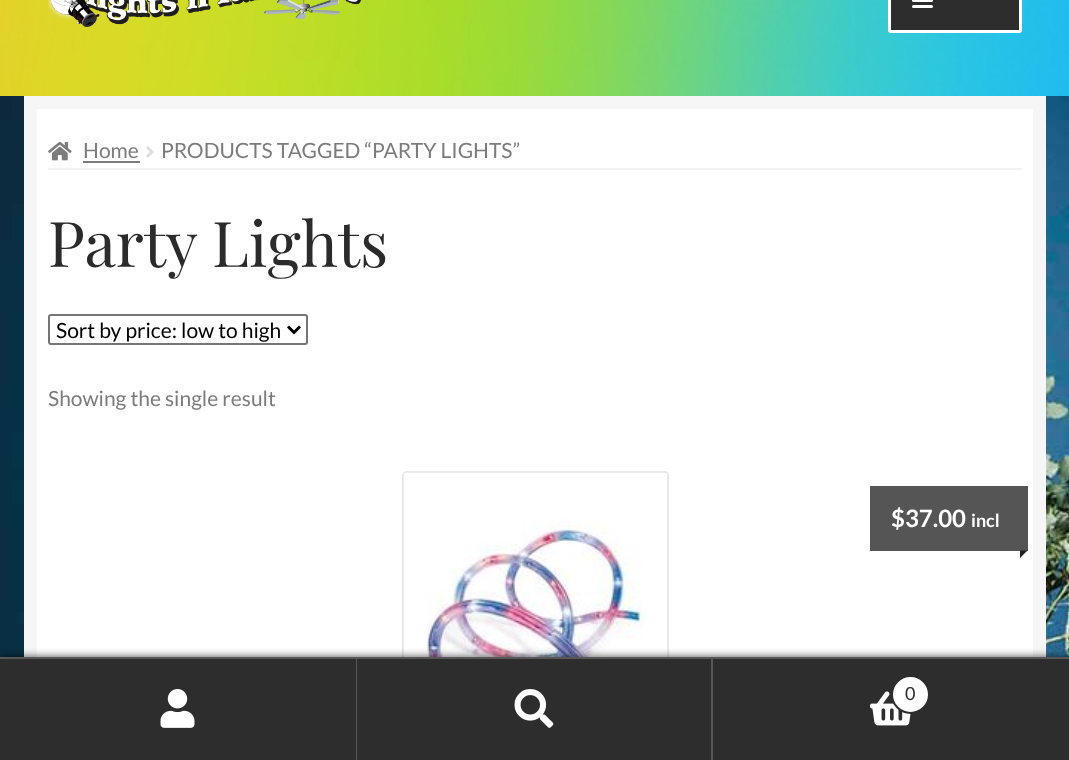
<!DOCTYPE html>
<meta charset="utf-8">
<style>body { margin: 0 } canvas { display: block }</style>
<canvas id="canvas" width="1069" height="760"></canvas>
<script type="module">
  const canvas = document.getElementById("canvas");
  const ctx = canvas.getContext("2d");
  ctx.miterLimit = 4;
  ctx.fontKerning = "normal";
  async function loadImage(src) {
    const img = new Image();
    img.src = src;
    await img.decode();
    return img;
  }

  ctx.fillStyle = "#ffffff";
  ctx.fillRect(0, 0, 1069, 760);
  ctx.drawImage(await loadImage("img1.png"), 0, 96, 1069, 561);
  ctx.drawImage(await loadImage("img2.png"), 0, 0, 1069, 96);
  ctx.drawImage(await loadImage("img3.png"), 48, 0, 313, 27);
  ctx.fillStyle = "#2d2d2d";
  ctx.beginPath();
  ctx.roundRect(889.5, -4.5, 131, 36, 1.5);
  ctx.fill();
  ctx.strokeStyle = "#ffffff";
  ctx.lineWidth = 3;
  ctx.stroke();
  ctx.fillStyle = "#ffffff";
  ctx.beginPath();
  ctx.roundRect(912, -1, 21, 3, 1.5);
  ctx.fill();
  ctx.beginPath();
  ctx.roundRect(912, 5, 21, 3, 1.5);
  ctx.fill();
  ctx.fillRect(37, 109, 996, 548);
  ctx.strokeStyle = "#f6f6f6";
  ctx.lineWidth = 13;
  ctx.strokeRect(30.5, 102.5, 1009, 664);
  ctx.fillStyle = "#f2f2f2";
  ctx.fillRect(48, 168, 974, 2);
  ctx.drawImage(await loadImage("img4.png"), 48, 141, 24, 20);
  ctx.font = "21px Lato";
  ctx.fillStyle = "#7c7c7c";
  ctx.fillText("Home", 83, 158);
  ctx.fillRect(83, 161, 57, 2);
  ctx.drawImage(await loadImage("img5.png"), 146, 146, 8, 12);
  ctx.fillText("PRODUCTS TAGGED “PARTY LIGHTS”", 161, 158);
  ctx.font = "63px Playfair Display";
  ctx.fillStyle = "#2b2b2b";
  ctx.fillText("Party Lights", 48, 267);
  ctx.beginPath();
  ctx.roundRect(49, 315, 258, 29, 2);
  ctx.strokeStyle = "#767676";
  ctx.lineWidth = 2;
  ctx.stroke();
  ctx.beginPath();
  ctx.moveTo(288, 326.5);
  ctx.lineTo(294, 332.5);
  ctx.lineTo(300, 326.5);
  ctx.strokeStyle = "#000000";
  ctx.lineWidth = 3;
  ctx.stroke();
  ctx.font = "21px Lato";
  ctx.fillStyle = "#000000";
  ctx.fillText("Sort by price: low to high", 56, 338);
  ctx.fillStyle = "#7c7c7c";
  ctx.fillText("Showing the single result", 48, 406);
  ctx.beginPath();
  ctx.roundRect(403, 472, 265, 265, 4);
  ctx.strokeStyle = "#e6e6e6";
  ctx.lineWidth = 2;
  ctx.stroke();
  ctx.drawImage(await loadImage("img6.png"), 403, 472, 265, 185);
  ctx.fillStyle = "#555555";
  ctx.beginPath();
  ctx.moveTo(878, 550);
  ctx.lineTo(878, 551);
  ctx.lineTo(1028, 551);
  ctx.lineTo(1028, 486);
  ctx.lineTo(1020, 486);
  ctx.lineTo(1020, 550);
  ctx.closePath();
  ctx.fill();
  ctx.fillRect(870, 486, 150, 65);
  ctx.font = "bold 24px Lato";
  ctx.fillStyle = "#ffffff";
  ctx.fillText("$37.00", 891, 527);
  ctx.font = "bold 18px Lato";
  ctx.fillText("incl", 971, 527);
  ctx.fillStyle = "#222222";
  ctx.beginPath();
  ctx.moveTo(1020, 550.5);
  ctx.lineTo(1027.5, 550.5);
  ctx.lineTo(1020, 558);
  ctx.closePath();
  ctx.fill();
  ctx.fillStyle = "rgba(0, 0, 0, 0.7)";
  ctx.filter = "blur(4.5px)";
  ctx.beginPath();
  ctx.rect(0, 657, 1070, 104);
  ctx.fill();
  ctx.filter = "none";
  ctx.fillStyle = "#575757";
  ctx.fillRect(0, 657, 1069, 2);
  ctx.fillStyle = "#2d2d2d";
  ctx.fillRect(0, 659, 711, 101);
  ctx.fillStyle = "rgba(255, 255, 255, 0.2)";
  ctx.fillRect(356, 659, 1, 101);
  ctx.drawImage(await loadImage("img7.png"), 160, 689, 35, 39);
  ctx.fillStyle = "#575757";
  ctx.fillRect(711, 659, 2, 101);
  ctx.drawImage(await loadImage("img8.png"), 514, 689, 40, 39);
  ctx.fillStyle = "#2d2d2d";
  ctx.fillRect(713, 659, 356, 101);
  ctx.drawImage(await loadImage("img9.png"), 870, 691, 41, 35);
  ctx.fillStyle = "#ffffff";
  ctx.beginPath();
  ctx.arc(910.5, 694.5, 18.5, 0, Math.PI * 2);
  ctx.fill();
  ctx.strokeStyle = "#2d2d2d";
  ctx.stroke();
  ctx.font = "18px Lato";
  ctx.fillStyle = "#2b2b2b";
  ctx.fillText("0", 905, 700);
</script>
